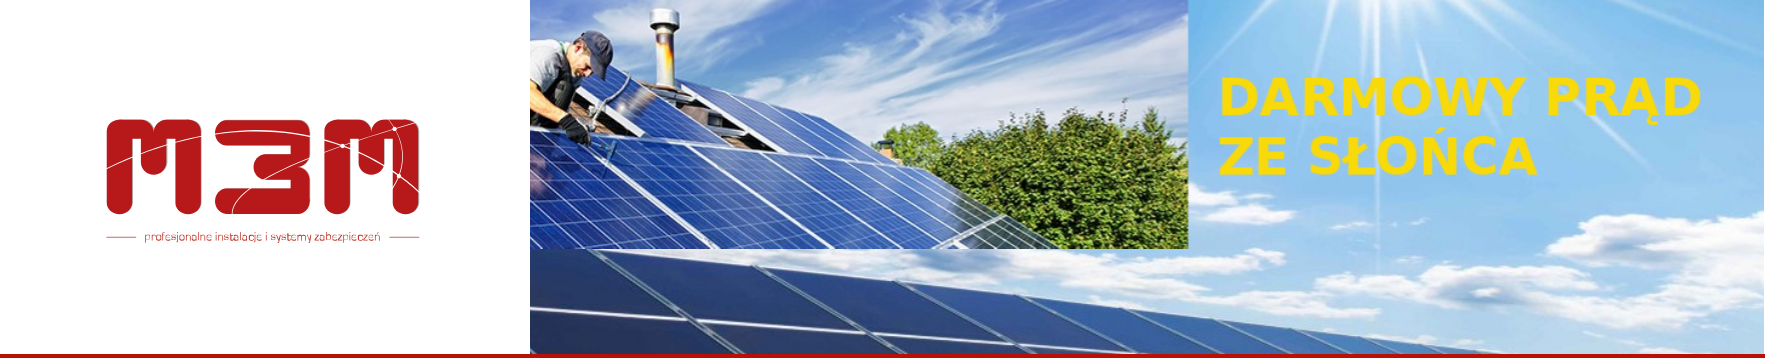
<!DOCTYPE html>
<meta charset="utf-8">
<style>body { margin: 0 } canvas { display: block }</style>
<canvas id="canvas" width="1765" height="358"></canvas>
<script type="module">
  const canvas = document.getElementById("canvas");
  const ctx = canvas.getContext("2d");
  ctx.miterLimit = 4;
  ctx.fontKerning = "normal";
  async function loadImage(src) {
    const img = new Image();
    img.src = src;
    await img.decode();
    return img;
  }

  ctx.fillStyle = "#ffffff";
  ctx.fillRect(0, 0, 1765, 358);
  ctx.drawImage(await loadImage("img1.png"), 106, 119, 314, 124);
  ctx.drawImage(await loadImage("img2.png"), 530, 0, 1234, 354);
  ctx.fillStyle = "#b81005";
  ctx.fillRect(0, 354, 1765, 4);
</script>
